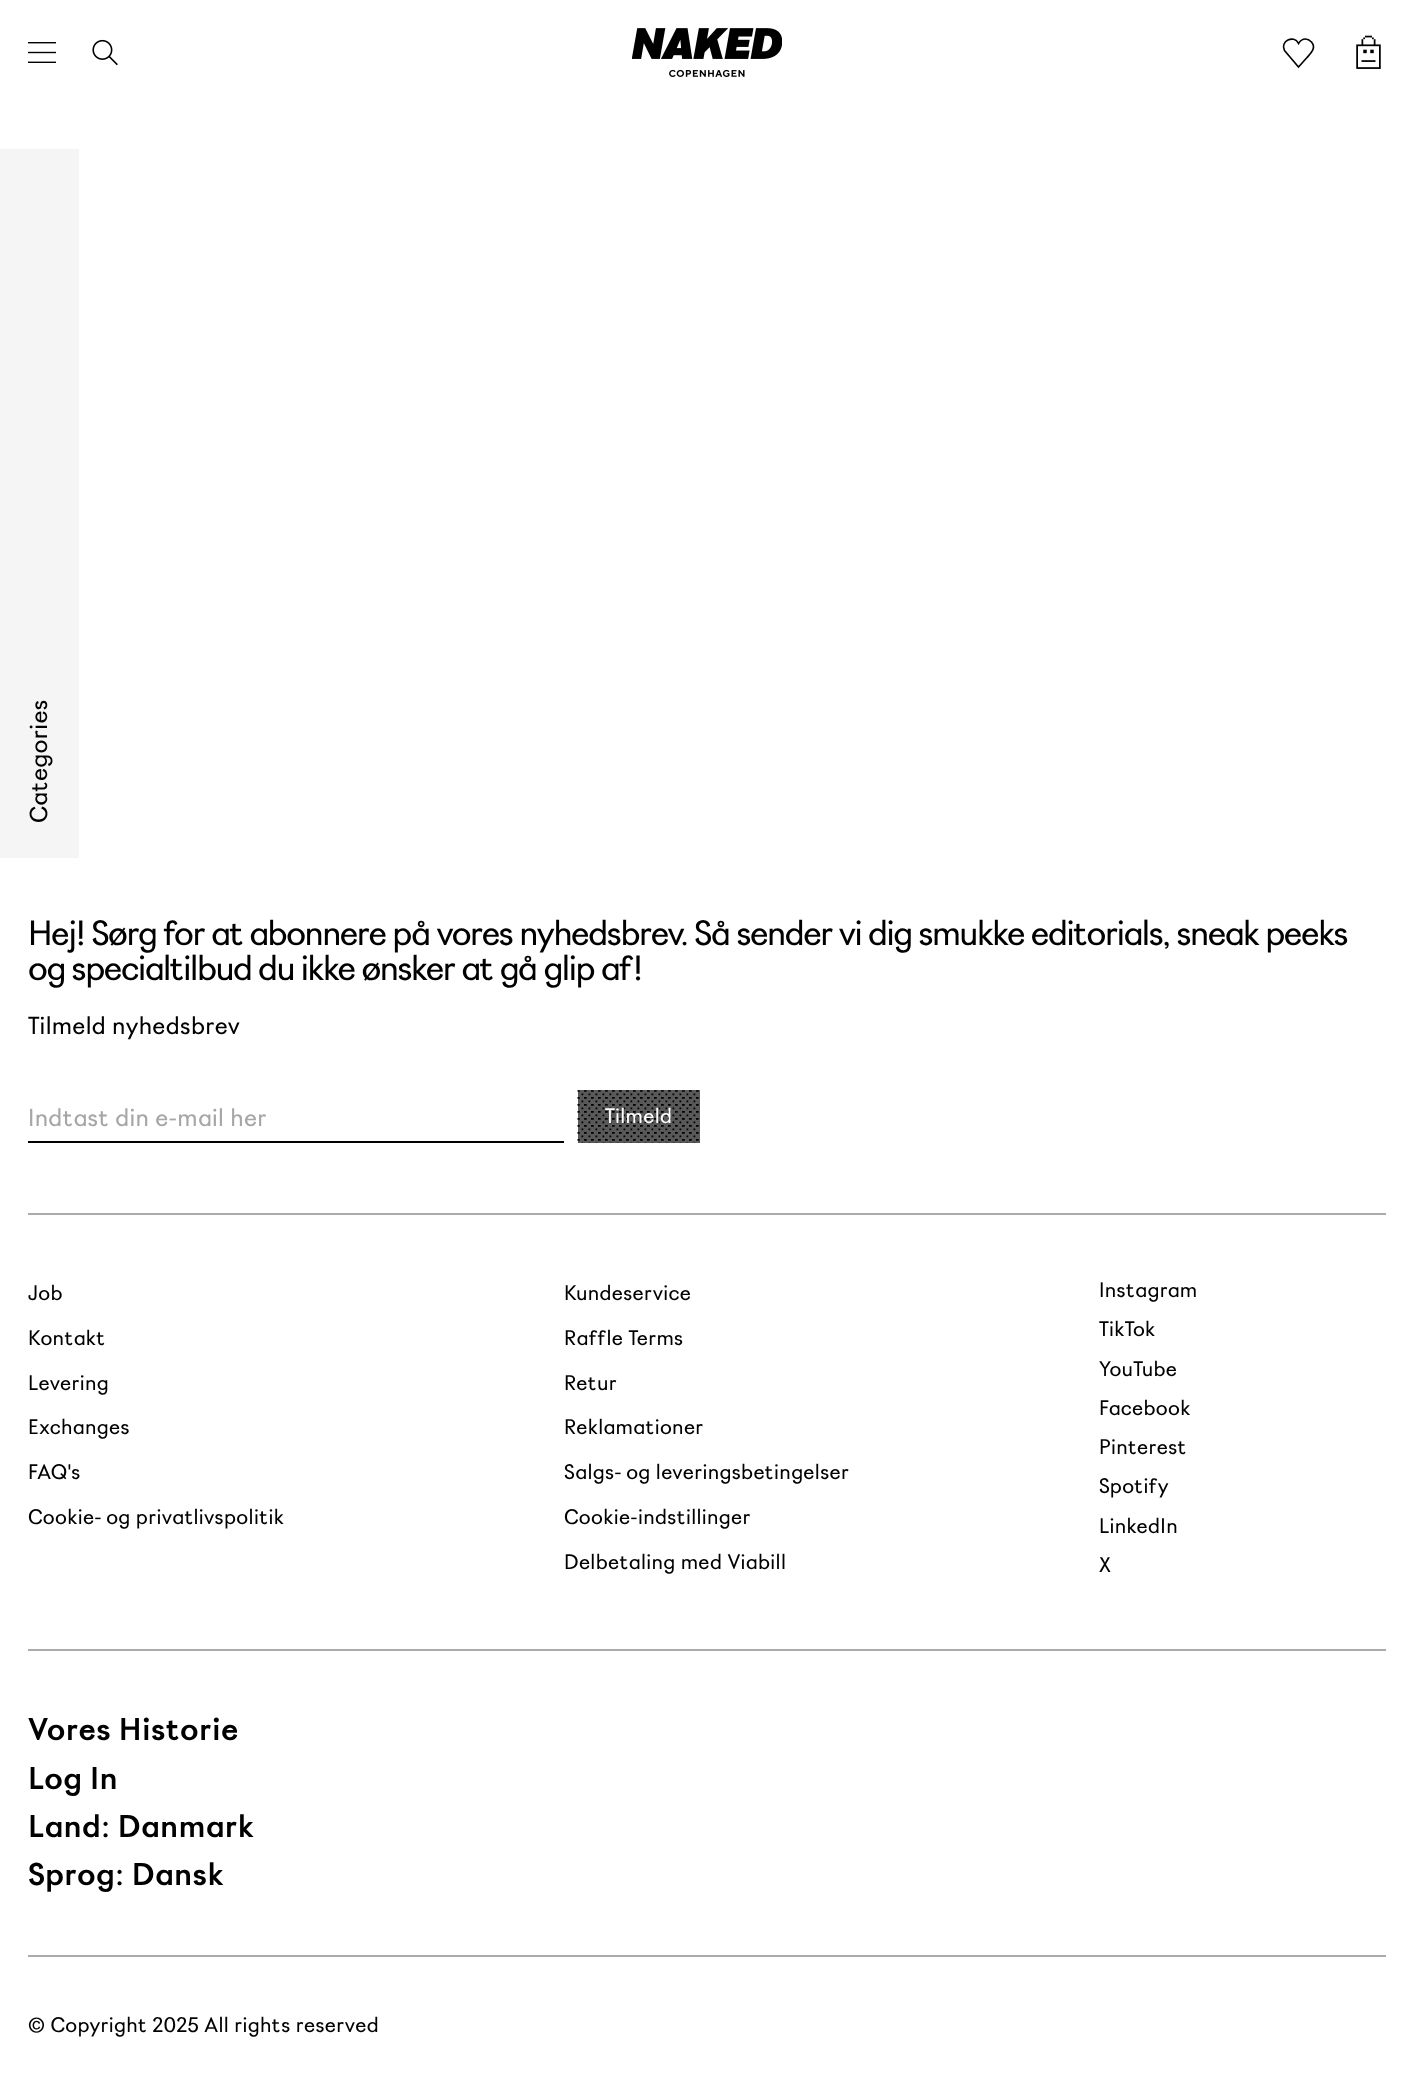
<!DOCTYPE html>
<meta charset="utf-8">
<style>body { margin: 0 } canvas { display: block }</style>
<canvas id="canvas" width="1414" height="2092"></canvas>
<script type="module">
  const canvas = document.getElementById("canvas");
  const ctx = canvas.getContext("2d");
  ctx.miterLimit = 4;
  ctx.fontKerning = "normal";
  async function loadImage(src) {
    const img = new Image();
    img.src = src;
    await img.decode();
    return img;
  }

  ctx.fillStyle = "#ffffff";
  ctx.fillRect(0, 0, 1414, 2092);
  ctx.drawImage(await loadImage("img1.png"), 28, 42, 28, 21);
  ctx.drawImage(await loadImage("img2.png"), 92, 39, 26, 27);
  ctx.drawImage(await loadImage("img3.png"), 632, 28, 150, 49);
  ctx.beginPath();
  ctx.moveTo(1305.5, 39);
  ctx.bezierCurveTo(1308, 39, 1310, 40.5, 1311.5, 42);
  ctx.bezierCurveTo(1316.5, 48, 1311, 53, 1307, 57.5);
  ctx.lineTo(1298.5, 67);
  ctx.lineTo(1284.5, 50.5);
  ctx.bezierCurveTo(1279.5, 41.5, 1294, 34, 1298.5, 43.5);
  ctx.bezierCurveTo(1300, 41, 1302.5, 39, 1305.5, 39);
  ctx.closePath();
  ctx.strokeStyle = "#000000";
  ctx.lineWidth = 1.6;
  ctx.stroke();
  ctx.drawImage(await loadImage("img4.png"), 1356, 35, 25, 34);
  ctx.fillStyle = "#f5f5f5";
  ctx.fillRect(0, 149, 79, 709);
  ctx.letterSpacing = "0.35px";
  ctx.font = "24.5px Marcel";
  ctx.fillStyle = "#000000";
  ctx.save();
  ctx.translate(47, 823);
  ctx.rotate(-90 * Math.PI / 180);
  ctx.fillText("Categories", 0, 0);
  ctx.restore();
  ctx.letterSpacing = "-1.4px";
  ctx.font = "35px Marcel";
  ctx.fillText("Hej! Sørg for at abonnere på vores nyhedsbrev. Så sender vi dig smukke editorials, sneak peeks", 28, 945);
  ctx.fillText("og specialtilbud du ikke ønsker at gå glip af!", 28, 980);
  ctx.letterSpacing = "0.35px";
  ctx.font = "24.5px Marcel";
  ctx.fillText("Tilmeld nyhedsbrev", 28, 1034);
  ctx.fillRect(28, 1141, 536, 2);
  ctx.fillStyle = "#a6a6a6";
  ctx.fillText("Indtast din e-mail her", 28, 1126);
  ctx.fillStyle = "#595959";
  ctx.fillRect(578, 1090, 122, 53);
  ctx.drawImage(await loadImage("img5.png"), 577, 1090, 122, 53);
  ctx.font = "21px Marcel";
  ctx.fillStyle = "#ffffff";
  ctx.fillText("Tilmeld", 605, 1123);
  ctx.fillStyle = "#ababab";
  ctx.fillRect(28, 1213, 1358, 2);
  ctx.fillStyle = "#000000";
  ctx.fillText("Job", 28, 1300);
  ctx.fillText("Kundeservice", 564, 1300);
  ctx.fillText("Kontakt", 28, 1345);
  ctx.fillText("Raffle Terms", 564, 1345);
  ctx.fillText("Levering", 28, 1390);
  ctx.fillText("Retur", 564, 1390);
  ctx.fillText("Exchanges", 28, 1434);
  ctx.fillText("Reklamationer", 564, 1434);
  ctx.fillText("FAQ's", 28, 1479);
  ctx.fillText("Salgs- og leveringsbetingelser", 564, 1479);
  ctx.fillText("Cookie- og privatlivspolitik", 28, 1524);
  ctx.fillText("Cookie-indstillinger", 564, 1524);
  ctx.fillText("Delbetaling med Viabill", 564, 1569);
  ctx.fillText("Instagram", 1099, 1297);
  ctx.fillText("TikTok", 1099, 1336);
  ctx.fillText("YouTube", 1099, 1376);
  ctx.fillText("Facebook", 1099, 1415);
  ctx.fillText("Pinterest", 1099, 1454);
  ctx.fillText("Spotify", 1099, 1493);
  ctx.fillText("LinkedIn", 1099, 1533);
  ctx.fillText("X", 1099, 1572);
  ctx.fillStyle = "#ababab";
  ctx.fillRect(28, 1649, 1358, 2);
  ctx.font = "bold 31.5px Marcel";
  ctx.fillStyle = "#000000";
  ctx.fillText("Vores Historie", 28, 1740);
  ctx.fillText("Log In", 28, 1789);
  ctx.fillText("Land: Danmark", 28, 1837);
  ctx.fillText("Sprog: Dansk", 28, 1885);
  ctx.fillStyle = "#ababab";
  ctx.fillRect(28, 1955, 1358, 2);
  ctx.font = "21px Marcel";
  ctx.fillStyle = "#000000";
  ctx.fillText("© Copyright 2025 All rights reserved", 28, 2032);
</script>
